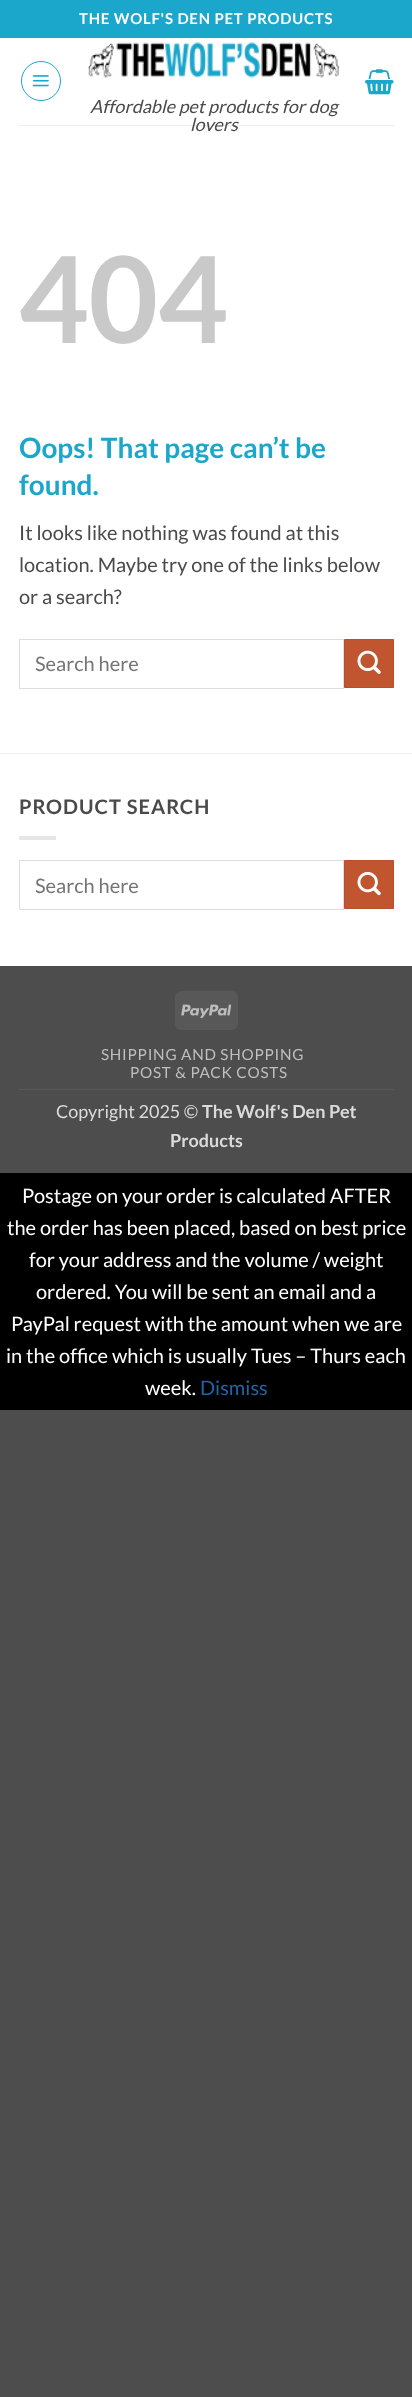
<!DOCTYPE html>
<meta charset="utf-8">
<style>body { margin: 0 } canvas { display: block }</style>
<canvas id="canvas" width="412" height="2397"></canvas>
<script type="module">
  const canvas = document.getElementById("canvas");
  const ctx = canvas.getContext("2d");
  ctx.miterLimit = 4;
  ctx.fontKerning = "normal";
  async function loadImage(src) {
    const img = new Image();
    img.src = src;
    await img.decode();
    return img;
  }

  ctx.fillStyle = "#4d4d4d";
  ctx.fillRect(0, 0, 412, 2397);
  ctx.fillStyle = "#ffffff";
  ctx.fillRect(0, 38, 412, 928);
  ctx.fillStyle = "#1ba6cb";
  ctx.fillRect(0, 0, 412, 38);
  ctx.letterSpacing = "0.75px";
  ctx.font = "bold 15px Lato";
  ctx.fillStyle = "#ffffff";
  ctx.fillText("THE WOLF'S DEN PET PRODUCTS", 79, 24);
  ctx.beginPath();
  ctx.arc(41, 81, 19.5, 0, Math.PI * 2);
  ctx.strokeStyle = "#1ba6cb";
  ctx.stroke();
  ctx.drawImage(await loadImage("img1.png"), 32, 75, 17, 12);
  ctx.drawImage(await loadImage("img2.png"), 365, 69, 29, 26);
  ctx.drawImage(await loadImage("img3.png"), 88, 42, 251, 36);
  ctx.letterSpacing = "0px";
  ctx.font = "italic 18px Lato";
  ctx.fillStyle = "#4a4a4a";
  ctx.fillText("Affordable pet products for dog", 90, 113);
  ctx.fillText("lovers", 190, 131);
  ctx.fillStyle = "rgba(74, 74, 74, 0.1)";
  ctx.fillRect(19, 125, 375, 1);
  ctx.font = "bold 120px Lato";
  ctx.fillStyle = "#c9c9c9";
  ctx.fillText("404", 19, 343);
  ctx.font = "bold 28px Lato";
  ctx.fillStyle = "#1ba6cb";
  ctx.fillText("Oops! That page can’t be", 19, 458);
  ctx.fillText("found.", 19, 495);
  ctx.font = "20px Lato";
  ctx.fillStyle = "#4a4a4a";
  ctx.fillText("It looks like nothing was found at this", 19, 540);
  ctx.fillText("location. Maybe try one of the links below", 19, 572);
  ctx.fillText("or a search?", 19, 604);
  ctx.strokeStyle = "#dddddd";
  ctx.strokeRect(19.5, 639.5, 324, 49);
  ctx.fillStyle = "#757575";
  ctx.fillText("Search here", 35, 671);
  ctx.fillStyle = "#c05530";
  ctx.beginPath();
  ctx.rect(344.5, 639.5, 49, 48);
  ctx.fill();
  ctx.strokeStyle = "#b6512e";
  ctx.stroke();
  ctx.drawImage(await loadImage("img4.png"), 357, 650, 24, 24);
  ctx.fillStyle = "#f2f2f2";
  ctx.fillRect(0, 753, 412, 1);
  ctx.letterSpacing = "1px";
  ctx.font = "bold 20px Lato";
  ctx.fillStyle = "#4a4a4a";
  ctx.fillText("PRODUCT SEARCH", 19, 814);
  ctx.fillStyle = "#e6e6e6";
  ctx.fillRect(19, 836, 37, 4);
  ctx.strokeStyle = "#dddddd";
  ctx.strokeRect(19.5, 860.5, 324, 49);
  ctx.letterSpacing = "0px";
  ctx.font = "20px Lato";
  ctx.fillStyle = "#757575";
  ctx.fillText("Search here", 35, 893);
  ctx.fillStyle = "#c05530";
  ctx.beginPath();
  ctx.rect(344.5, 860.5, 49, 48);
  ctx.fill();
  ctx.strokeStyle = "#b6512e";
  ctx.stroke();
  ctx.drawImage(await loadImage("img5.png"), 357, 871, 24, 25);
  ctx.fillStyle = "#585858";
  ctx.beginPath();
  ctx.roundRect(175, 991, 63, 39, 6);
  ctx.fill();
  ctx.drawImage(await loadImage("img6.png"), 181, 1004, 50, 14);
  ctx.fillRect(19, 1089, 375, 1);
  ctx.letterSpacing = "0.75px";
  ctx.font = "15.25px Lato";
  ctx.fillStyle = "#bfbfbf";
  ctx.fillText("SHIPPING AND SHOPPING", 101, 1060);
  ctx.fillText("POST & PACK COSTS", 130, 1078);
  ctx.letterSpacing = "0px";
  ctx.font = "18px Lato";
  ctx.fillStyle = "#dbdbdb";
  ctx.fillText("Copyright 2025 ©", 56, 1118);
  ctx.font = "bold 18px Lato";
  ctx.fillText("The Wolf's Den Pet", 202, 1118);
  ctx.fillText("Products", 170, 1147);
  ctx.fillStyle = "#000000";
  ctx.fillRect(0, 1173, 412, 237);
  ctx.font = "20px Lato";
  ctx.fillStyle = "#ffffff";
  ctx.fillText("Postage on your order is calculated AFTER", 22, 1203);
  ctx.fillText("the order has been placed, based on best price", 7, 1235);
  ctx.fillText("for your address and the volume / weight", 29, 1267);
  ctx.fillText("ordered. You will be sent an email and a", 36, 1299);
  ctx.fillText("PayPal request with the amount when we are", 11, 1331);
  ctx.fillText("in the office which is usually Tues – Thurs each", 6, 1363);
  ctx.fillText("week.", 145, 1395);
  ctx.fillStyle = "#1b65ab";
  ctx.fillText("Dismiss", 200, 1395);
</script>
